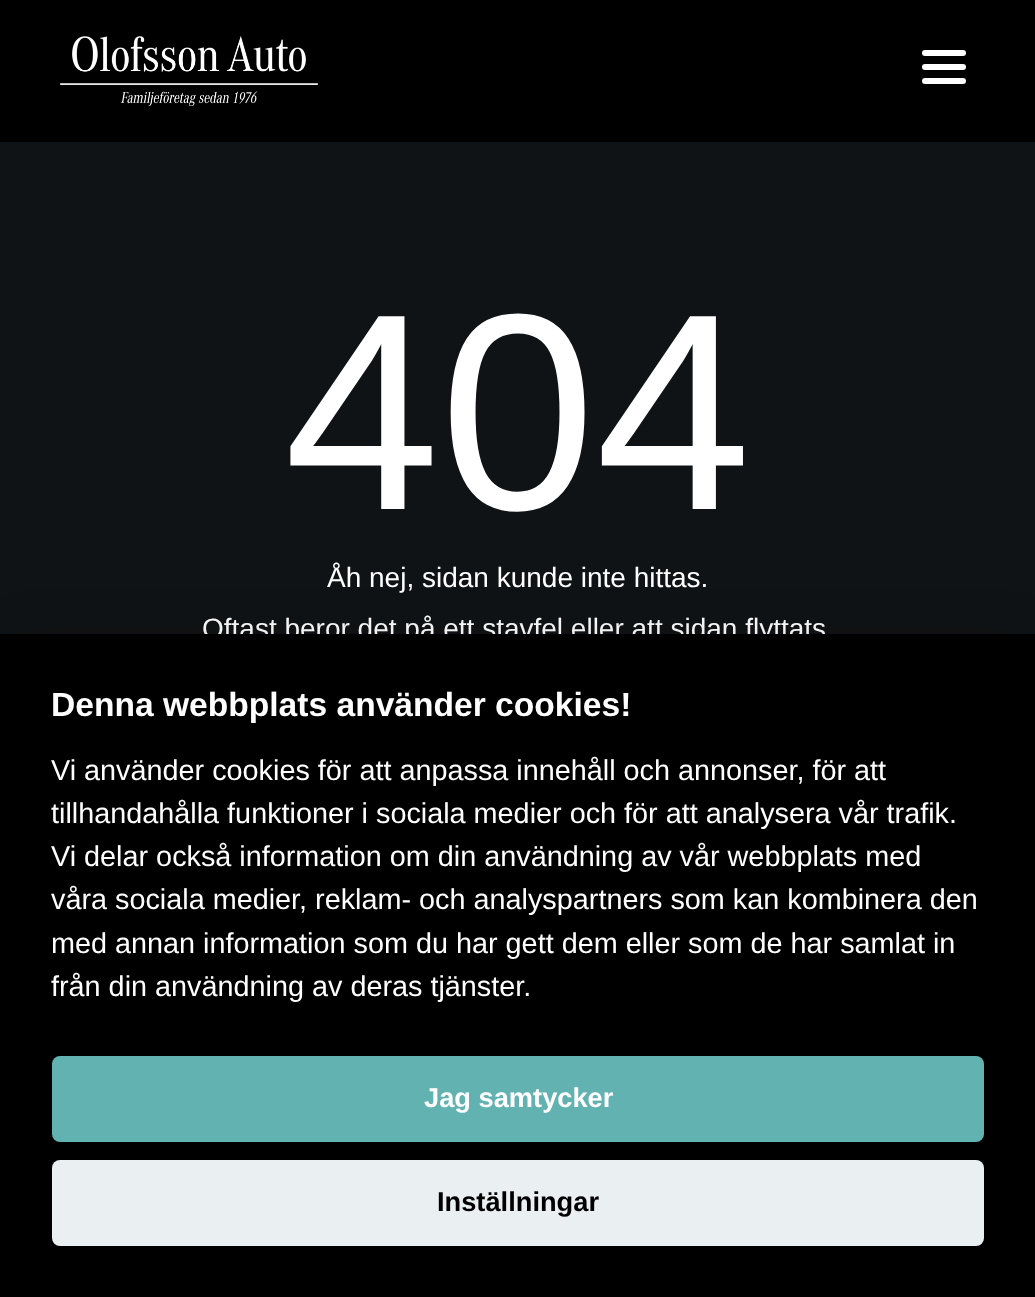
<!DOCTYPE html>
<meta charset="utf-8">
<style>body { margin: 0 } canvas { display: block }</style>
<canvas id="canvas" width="1035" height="1297"></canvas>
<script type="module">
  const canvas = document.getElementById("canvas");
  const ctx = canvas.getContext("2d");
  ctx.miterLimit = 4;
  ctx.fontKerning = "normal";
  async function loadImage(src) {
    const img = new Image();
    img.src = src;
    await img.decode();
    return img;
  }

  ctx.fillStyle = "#101315";
  ctx.fillRect(0, 0, 1035, 1297);
  ctx.fillStyle = "#000000";
  ctx.fillRect(0, 0, 1035, 142);
  ctx.drawImage(await loadImage("img1.png"), 60, 36, 258, 70);
  ctx.fillStyle = "#ffffff";
  ctx.beginPath();
  ctx.roundRect(922, 64, 44, 6, 3);
  ctx.fill();
  ctx.beginPath();
  ctx.roundRect(922, 50, 44, 6, 3);
  ctx.fill();
  ctx.beginPath();
  ctx.roundRect(922, 78, 44, 6, 3);
  ctx.fill();
  ctx.font = "280px Liberation Sans";
  ctx.fillText("404", 284, 509);
  ctx.font = "28px Liberation Sans";
  ctx.fillText("Åh nej, sidan kunde inte hittas.", 327, 587);
  ctx.fillText("Oftast beror det på ett stavfel eller att sidan flyttats", 202, 638);
  ctx.fillStyle = "rgba(2, 2, 3, 0.28)";
  ctx.filter = "blur(30px)";
  ctx.beginPath();
  ctx.rect(0, 654, 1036, 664);
  ctx.fill();
  ctx.filter = "none";
  ctx.fillStyle = "#000000";
  ctx.fillRect(0, 634, 1035, 663);
  ctx.font = "bold 33.6px Liberation Sans";
  ctx.fillStyle = "#ffffff";
  ctx.fillText("Denna webbplats använder cookies!", 51, 716);
  ctx.font = "28.8px Liberation Sans";
  ctx.fillText("Vi använder cookies för att anpassa innehåll och annonser, för att", 51, 780);
  ctx.fillText("tillhandahålla funktioner i sociala medier och för att analysera vår trafik.", 51, 823);
  ctx.fillText("Vi delar också information om din användning av vår webbplats med", 51, 866);
  ctx.fillText("våra sociala medier, reklam- och analyspartners som kan kombinera den", 51, 909);
  ctx.fillText("med annan information som du har gett dem eller som de har samlat in", 51, 953);
  ctx.fillText("från din användning av deras tjänster.", 51, 996);
  ctx.fillStyle = "#63b2b2";
  ctx.beginPath();
  ctx.roundRect(52, 1056, 932, 86, 8);
  ctx.fill();
  ctx.font = "bold 27.25px Liberation Sans";
  ctx.fillStyle = "#ffffff";
  ctx.fillText("Jag samtycker", 424, 1107);
  ctx.fillStyle = "#eaeff2";
  ctx.beginPath();
  ctx.roundRect(52, 1160, 932, 86, 8);
  ctx.fill();
  ctx.fillStyle = "#000000";
  ctx.fillText("Inställningar", 437, 1211);
</script>
